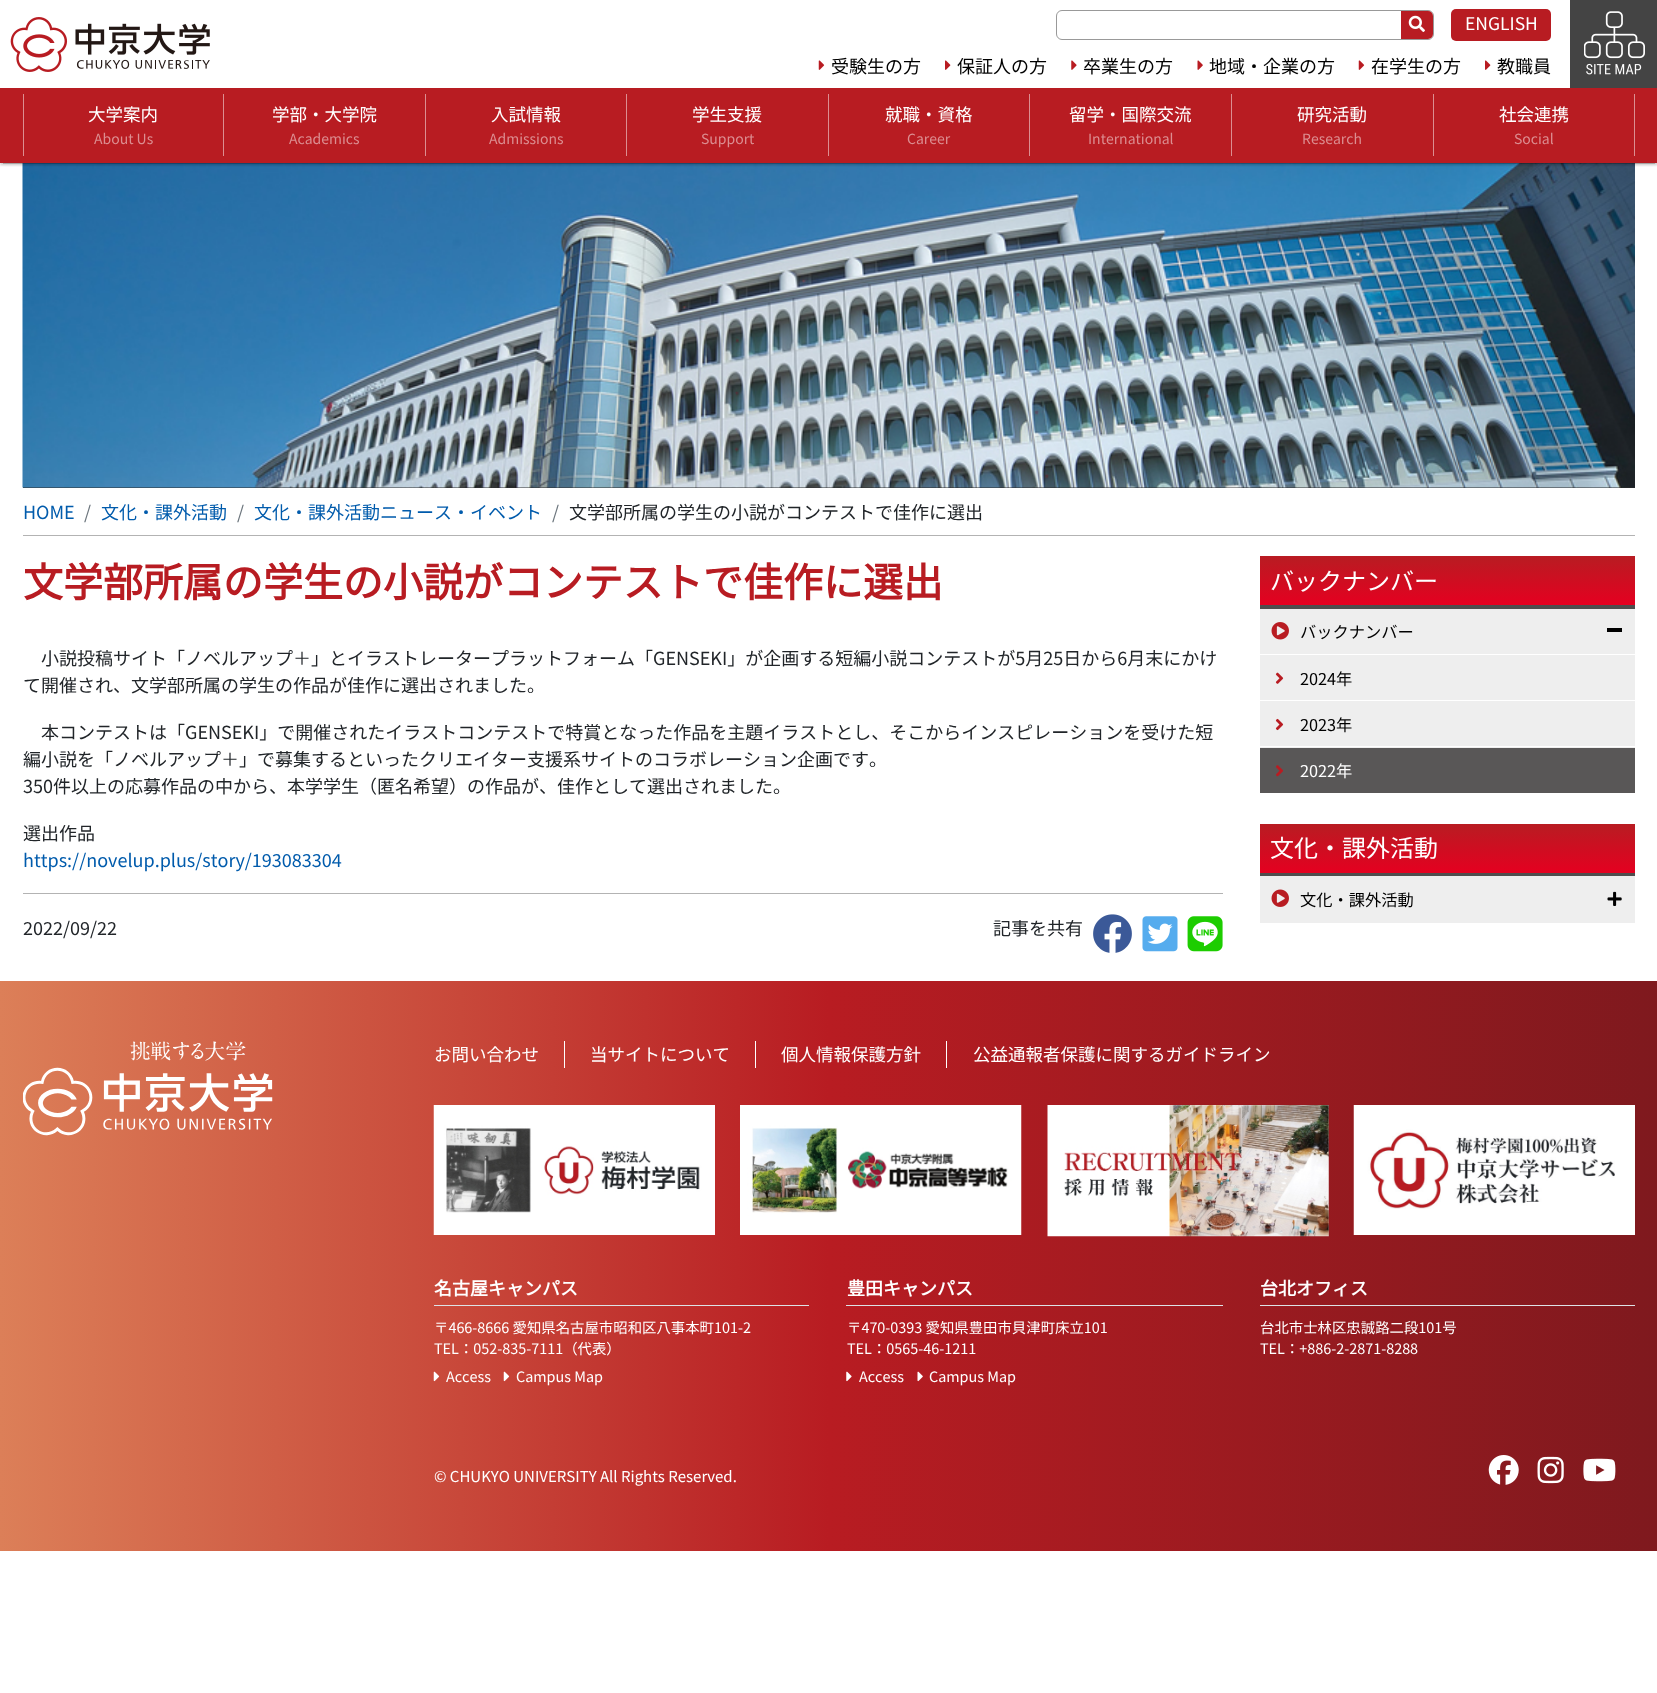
<!DOCTYPE html>
<meta charset="utf-8">
<style>body { margin: 0 } canvas { display: block }</style>
<canvas id="canvas" width="1657" height="1693"></canvas>
<script type="module">
  const canvas = document.getElementById("canvas");
  const ctx = canvas.getContext("2d");
  ctx.miterLimit = 4;
  ctx.fontKerning = "none";
  async function loadImage(src) {
    const img = new Image();
    img.src = src;
    await img.decode();
    return img;
  }
  let gradient;

  ctx.fillStyle = "#ffffff";
  ctx.fillRect(0, 0, 1657, 1693);
  ctx.fillStyle = "#2c2c2c";
  ctx.fillRect(23, 487, 1612, 1);
  ctx.drawImage(await loadImage("img8.png"), 22, 163, 1613, 325);
  ctx.save();
  ctx.beginPath();
  ctx.rect(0, 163, 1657, 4);
  ctx.clip();
  ctx.fillStyle = "rgba(0, 0, 0, 0.12)";
  ctx.filter = "blur(3px)";
  ctx.beginPath();
  ctx.rect(0, 1, 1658, 163);
  ctx.fill();
  ctx.filter = "none";
  ctx.restore();
  ctx.save();
  ctx.beginPath();
  ctx.rect(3, 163, 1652, 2);
  ctx.clip();
  ctx.fillStyle = "rgba(0, 0, 0, 0.2)";
  ctx.filter = "blur(0.5px)";
  ctx.beginPath();
  ctx.rect(3, 6, 1652, 158);
  ctx.fill();
  ctx.filter = "none";
  ctx.restore();
  ctx.save();
  ctx.beginPath();
  ctx.rect(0, 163, 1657, 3);
  ctx.clip();
  ctx.fillStyle = "rgba(0, 0, 0, 0.14)";
  ctx.filter = "blur(1px)";
  ctx.beginPath();
  ctx.rect(0, 3, 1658, 162);
  ctx.fill();
  ctx.filter = "none";
  ctx.restore();
  ctx.drawImage(await loadImage("img1.png"), 10, 17, 200, 55);
  ctx.beginPath();
  ctx.roundRect(1056.5, 10.5, 377, 29, 5.5);
  ctx.strokeStyle = "#999999";
  ctx.stroke();
  ctx.fillStyle = "#b81c22";
  ctx.beginPath();
  ctx.roundRect(1401, 11, 32, 28, [0, 5, 5, 0]);
  ctx.fill();
  ctx.drawImage(await loadImage("img2.png"), 1408, 15, 17, 17);
  ctx.beginPath();
  ctx.roundRect(1451, 9, 100, 32, 5);
  ctx.fill();
  ctx.font = "100 17.5px Noto Sans JP";
  ctx.fillStyle = "#ffffff";
  ctx.fillText("ENGLISH", 1465, 30);
  ctx.drawImage(await loadImage("img3.png"), 818, 60, 7, 10);
  ctx.font = "100 18px Noto Sans JP";
  ctx.fillStyle = "#000000";
  ctx.fillText("受験生の方", 831, 73);
  ctx.drawImage(await loadImage("img4.png"), 945, 60, 6, 10);
  ctx.fillText("保証人の方", 957, 73);
  ctx.drawImage(await loadImage("img5.png"), 1071, 60, 6, 10);
  ctx.fillText("卒業生の方", 1083, 73);
  ctx.drawImage(await loadImage("img6.png"), 1197, 60, 6, 10);
  ctx.fillText("地域・企業の方", 1209, 73);
  ctx.drawImage(await loadImage("img3.png"), 1358, 60, 7, 10);
  ctx.fillText("在学生の方", 1371, 73);
  ctx.drawImage(await loadImage("img4.png"), 1485, 60, 6, 10);
  ctx.fillText("教職員", 1497, 73);
  ctx.fillStyle = "#444444";
  ctx.fillRect(1570, 0, 87, 88);
  ctx.drawImage(await loadImage("img7.png"), 1584, 11, 61, 64);
  ctx.fillStyle = "#b81c22";
  ctx.fillRect(0, 88, 1657, 75);
  ctx.fillStyle = "#dc8e91";
  ctx.fillRect(223, 94, 1, 62);
  ctx.fillRect(23, 94, 1, 62);
  ctx.font = "100 17.5px Noto Sans JP";
  ctx.fillStyle = "#ffffff";
  ctx.fillText("大学案内", 88, 121);
  ctx.font = "100 14px Noto Sans JP";
  ctx.fillStyle = "#dc8e91";
  ctx.fillText("About Us", 94, 144);
  ctx.fillRect(425, 94, 1, 62);
  ctx.font = "100 17.5px Noto Sans JP";
  ctx.fillStyle = "#ffffff";
  ctx.fillText("学部・大学院", 272, 121);
  ctx.font = "100 14px Noto Sans JP";
  ctx.fillStyle = "#dc8e91";
  ctx.fillText("Academics", 289, 144);
  ctx.fillRect(626, 94, 1, 62);
  ctx.font = "100 17.5px Noto Sans JP";
  ctx.fillStyle = "#ffffff";
  ctx.fillText("入試情報", 491, 121);
  ctx.font = "100 14px Noto Sans JP";
  ctx.fillStyle = "#dc8e91";
  ctx.fillText("Admissions", 489, 144);
  ctx.fillRect(828, 94, 1, 62);
  ctx.font = "100 17.5px Noto Sans JP";
  ctx.fillStyle = "#ffffff";
  ctx.fillText("学生支援", 692, 121);
  ctx.font = "100 14px Noto Sans JP";
  ctx.fillStyle = "#dc8e91";
  ctx.fillText("Support", 701, 144);
  ctx.fillRect(1029, 94, 1, 62);
  ctx.font = "100 17.5px Noto Sans JP";
  ctx.fillStyle = "#ffffff";
  ctx.fillText("就職・資格", 885, 121);
  ctx.font = "100 14px Noto Sans JP";
  ctx.fillStyle = "#dc8e91";
  ctx.fillText("Career", 907, 144);
  ctx.fillRect(1231, 94, 1, 62);
  ctx.font = "100 17.5px Noto Sans JP";
  ctx.fillStyle = "#ffffff";
  ctx.fillText("留学・国際交流", 1069, 121);
  ctx.font = "100 14px Noto Sans JP";
  ctx.fillStyle = "#dc8e91";
  ctx.fillText("International", 1088, 144);
  ctx.fillRect(1433, 94, 1, 62);
  ctx.font = "100 17.5px Noto Sans JP";
  ctx.fillStyle = "#ffffff";
  ctx.fillText("研究活動", 1297, 121);
  ctx.font = "100 14px Noto Sans JP";
  ctx.fillStyle = "#dc8e91";
  ctx.fillText("Research", 1302, 144);
  ctx.fillRect(1634, 94, 1, 62);
  ctx.font = "100 17.5px Noto Sans JP";
  ctx.fillStyle = "#ffffff";
  ctx.fillText("社会連携", 1499, 121);
  ctx.font = "100 14px Noto Sans JP";
  ctx.fillStyle = "#dc8e91";
  ctx.fillText("Social", 1514, 144);
  ctx.fillStyle = "#b3b3b3";
  ctx.fillRect(23, 535, 1612, 1);
  ctx.font = "100 18px Noto Sans JP";
  ctx.fillStyle = "#005bac";
  ctx.fillText("HOME", 23, 519);
  ctx.fillStyle = "#6c757d";
  ctx.fillText("/", 84, 519);
  ctx.fillStyle = "#005bac";
  ctx.fillText("文化・課外活動", 101, 519);
  ctx.fillStyle = "#6c757d";
  ctx.fillText("/", 237, 519);
  ctx.fillStyle = "#005bac";
  ctx.fillText("文化・課外活動ニュース・イベント", 254, 519);
  ctx.fillStyle = "#6c757d";
  ctx.fillText("/", 552, 519);
  ctx.fillStyle = "#212529";
  ctx.fillText("文学部所属の学生の小説がコンテストで佳作に選出", 569, 519);
  ctx.font = "bold 40px Noto Sans JP";
  ctx.fillStyle = "#b81c22";
  ctx.fillText("文学部所属の学生の小説がコンテストで佳作に選出", 23, 597);
  ctx.font = "100 18px Noto Sans JP";
  ctx.fillStyle = "#212529";
  ctx.fillText("小説投稿サイト「ノベルアップ＋」とイラストレータープラットフォーム「GENSEKI」が企画する短編小説コンテストが5月25日から6月末にかけ", 41, 665);
  ctx.fillText("て開催され、文学部所属の学生の作品が佳作に選出されました。", 23, 692);
  ctx.fillText("本コンテストは「GENSEKI」で開催されたイラストコンテストで特賞となった作品を主題イラストとし、そこからインスピレーションを受けた短", 41, 739);
  ctx.fillText("編小説を「ノベルアップ＋」で募集するといったクリエイター支援系サイトのコラボレーション企画です。", 23, 766);
  ctx.fillText("350件以上の応募作品の中から、本学学生（匿名希望）の作品が、佳作として選出されました。", 23, 793);
  ctx.fillText("選出作品", 23, 840);
  ctx.fillStyle = "#005bac";
  ctx.fillText("https://novelup.plus/story/193083304", 23, 867);
  ctx.fillStyle = "#b3b3b3";
  ctx.fillRect(23, 893, 1200, 1);
  ctx.fillStyle = "#212529";
  ctx.fillText("2022/09/22", 23, 935);
  ctx.fillText("記事を共有", 993, 935);
  ctx.drawImage(await loadImage("img9.png"), 1093, 914, 39, 39);
  ctx.drawImage(await loadImage("img10.png"), 1142, 916, 36, 36);
  ctx.drawImage(await loadImage("img11.png"), 1187, 916, 36, 36);
  gradient = ctx.createLinearGradient(1448, 556, 1448, 605);
  gradient.addColorStop(0, "#b81c22");
  gradient.addColorStop(1, "#e50020");
  ctx.fillStyle = gradient;
  ctx.fillRect(1260, 556, 375, 49);
  ctx.fillStyle = "#4f4d4d";
  ctx.fillRect(1260, 605, 375, 4);
  ctx.font = "100 24px Noto Sans JP";
  ctx.fillStyle = "#ffffff";
  ctx.fillText("バックナンバー", 1270, 590);
  ctx.fillStyle = "#eeeeee";
  ctx.fillRect(1260, 609, 375, 45);
  ctx.drawImage(await loadImage("img12.png"), 1271, 622, 18, 18);
  ctx.font = "100 16.25px Noto Sans JP";
  ctx.fillStyle = "#000000";
  ctx.fillText("バックナンバー", 1300, 638);
  ctx.fillRect(1607, 628, 15, 4);
  ctx.fillStyle = "#eeeeee";
  ctx.fillRect(1260, 655, 375, 45);
  ctx.drawImage(await loadImage("img13.png"), 1275, 672, 9, 12);
  ctx.fillStyle = "#000000";
  ctx.fillText("2024年", 1300, 685);
  ctx.fillStyle = "#eeeeee";
  ctx.fillRect(1260, 701, 375, 47);
  ctx.drawImage(await loadImage("img14.png"), 1275, 718, 9, 13);
  ctx.fillStyle = "#ffffff";
  ctx.fillRect(1260, 746, 375, 1);
  ctx.fillStyle = "#000000";
  ctx.fillText("2023年", 1300, 731);
  ctx.fillStyle = "#595757";
  ctx.fillRect(1260, 748, 375, 45);
  ctx.drawImage(await loadImage("img15.png"), 1276, 765, 7, 12);
  ctx.fillStyle = "#ffffff";
  ctx.fillText("2022年", 1300, 777);
  gradient = ctx.createLinearGradient(1448, 824, 1448, 873);
  gradient.addColorStop(0, "#b81c22");
  gradient.addColorStop(1, "#e50020");
  ctx.fillStyle = gradient;
  ctx.fillRect(1260, 824, 375, 49);
  ctx.fillStyle = "#4f4d4d";
  ctx.fillRect(1260, 873, 375, 3);
  ctx.font = "100 24px Noto Sans JP";
  ctx.fillStyle = "#ffffff";
  ctx.fillText("文化・課外活動", 1270, 857);
  ctx.fillStyle = "#eeeeee";
  ctx.fillRect(1260, 876, 375, 47);
  ctx.drawImage(await loadImage("img16.png"), 1271, 889, 18, 18);
  ctx.font = "100 16.25px Noto Sans JP";
  ctx.fillStyle = "#000000";
  ctx.fillText("文化・課外活動", 1300, 906);
  ctx.drawImage(await loadImage("img17.png"), 1607, 891, 15, 15);
  gradient = ctx.createLinearGradient(0, 1266, 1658, 1266);
  gradient.addColorStop(0, "#dc7f58");
  gradient.addColorStop(0.5, "#b81c22");
  gradient.addColorStop(1, "#7f191e");
  ctx.fillStyle = gradient;
  ctx.fillRect(0, 981, 1657, 570);
  ctx.drawImage(await loadImage("img18.png"), 23, 1041, 250, 95);
  ctx.fillStyle = "#ffffff";
  ctx.fillRect(564, 1041, 1, 27);
  ctx.font = "100 17.5px Noto Sans JP";
  ctx.fillText("お問い合わせ", 434, 1061);
  ctx.fillRect(755, 1041, 1, 27);
  ctx.fillText("当サイトについて", 590, 1061);
  ctx.fillRect(946, 1041, 1, 27);
  ctx.fillText("個人情報保護方針", 781, 1061);
  ctx.fillText("公益通報者保護に関するガイドライン", 973, 1061);
  ctx.drawImage(await loadImage("img19.png"), 433, 1105, 282, 130);
  ctx.drawImage(await loadImage("img20.png"), 740, 1105, 282, 130);
  ctx.drawImage(await loadImage("img21.png"), 1047, 1105, 282, 132);
  ctx.drawImage(await loadImage("img22.png"), 1353, 1105, 282, 130);
  ctx.fillStyle = "#dee2e6";
  ctx.fillRect(434, 1305, 375, 1);
  ctx.font = "bold 18px Noto Sans JP";
  ctx.fillStyle = "#ffffff";
  ctx.fillText("名古屋キャンパス", 434, 1295);
  ctx.font = "100 14.4px Noto Sans JP";
  ctx.fillText("〒466-8666 愛知県名古屋市昭和区八事本町101-2", 434, 1333);
  ctx.fillText("TEL：052-835-7111（代表）", 434, 1354);
  ctx.drawImage(await loadImage("img23.png"), 433, 1371, 7, 11);
  ctx.fillText("Access", 446, 1382);
  ctx.drawImage(await loadImage("img24.png"), 503, 1371, 7, 11);
  ctx.fillText("Campus Map", 516, 1382);
  ctx.fillStyle = "#dee2e6";
  ctx.fillRect(846, 1305, 377, 1);
  ctx.font = "bold 18px Noto Sans JP";
  ctx.fillStyle = "#ffffff";
  ctx.fillText("豊田キャンパス", 847, 1295);
  ctx.font = "100 14.4px Noto Sans JP";
  ctx.fillText("〒470-0393 愛知県豊田市貝津町床立101", 847, 1333);
  ctx.fillText("TEL：0565-46-1211", 847, 1354);
  ctx.drawImage(await loadImage("img25.png"), 846, 1371, 6, 11);
  ctx.fillText("Access", 859, 1382);
  ctx.drawImage(await loadImage("img26.png"), 917, 1371, 6, 11);
  ctx.fillText("Campus Map", 929, 1382);
  ctx.fillStyle = "#dee2e6";
  ctx.fillRect(1260, 1305, 375, 1);
  ctx.font = "bold 18px Noto Sans JP";
  ctx.fillStyle = "#ffffff";
  ctx.fillText("台北オフィス", 1260, 1295);
  ctx.font = "100 14.4px Noto Sans JP";
  ctx.fillText("台北市士林区忠誠路二段101号", 1260, 1333);
  ctx.fillText("TEL：+886-2-2871-8288", 1260, 1354);
  ctx.font = "100 15px Noto Sans JP";
  ctx.fillText("© CHUKYO UNIVERSITY All Rights Reserved.", 434, 1482);
  ctx.drawImage(await loadImage("img27.png"), 1488, 1455, 31, 30);
  ctx.drawImage(await loadImage("img28.png"), 1537, 1456, 27, 28);
  ctx.drawImage(await loadImage("img29.png"), 1583, 1458, 33, 24);
</script>
